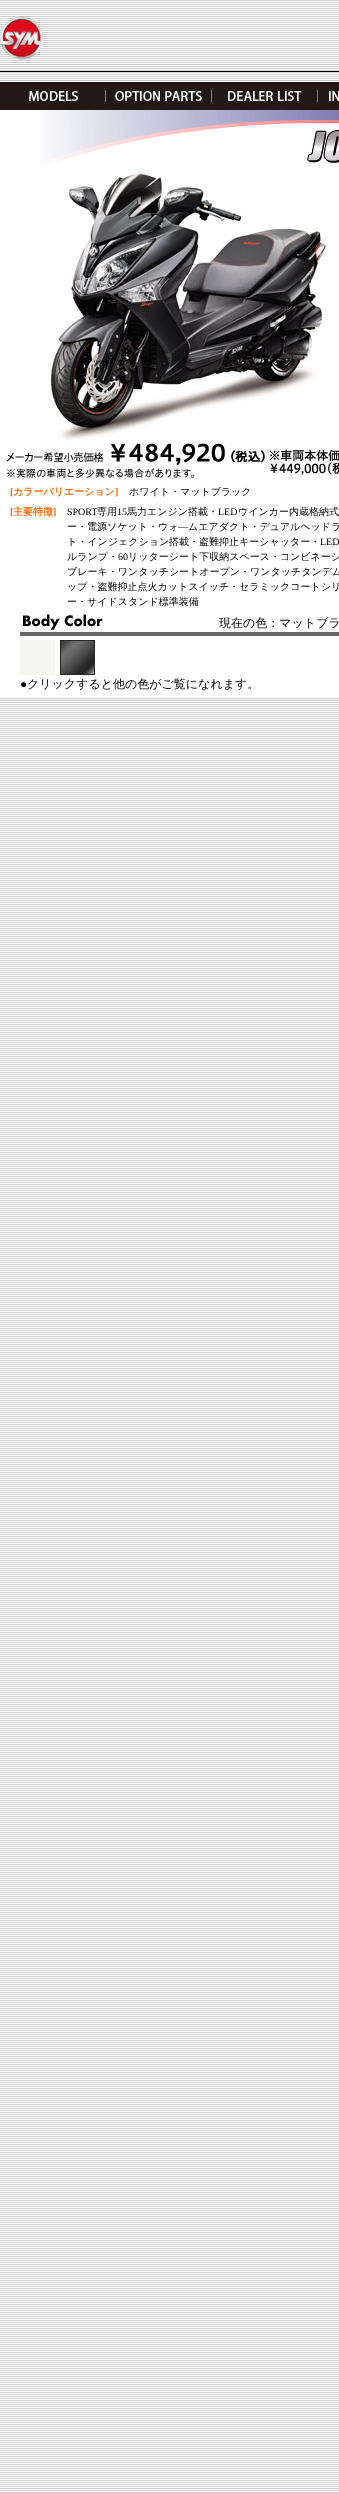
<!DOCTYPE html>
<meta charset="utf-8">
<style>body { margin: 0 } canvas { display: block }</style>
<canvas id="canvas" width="339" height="2493"></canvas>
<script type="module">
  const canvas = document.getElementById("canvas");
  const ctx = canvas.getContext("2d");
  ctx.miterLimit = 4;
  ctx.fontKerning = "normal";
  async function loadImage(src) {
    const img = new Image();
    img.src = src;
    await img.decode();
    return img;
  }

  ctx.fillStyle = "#ffffff";
  ctx.fillRect(0, 0, 339, 2493);
  ctx.drawImage(await loadImage("img1.png"), 0, 0, 339, 2493);
  ctx.drawImage(await loadImage("img2.png"), 0, 16, 43, 44);
  ctx.fillStyle = "#000000";
  ctx.fillRect(0, 71, 339, 1);
  ctx.drawImage(await loadImage("img3.png"), 0, 82, 106, 28);
  ctx.drawImage(await loadImage("img4.png"), 106, 82, 106, 28);
  ctx.drawImage(await loadImage("img5.png"), 212, 82, 106, 28);
  ctx.drawImage(await loadImage("img6.png"), 318, 82, 21, 28);
  ctx.fillStyle = "#ffffff";
  ctx.fillRect(0, 110, 339, 587);
  ctx.drawImage(await loadImage("img7.png"), 40, 110, 172, 56);
  ctx.drawImage(await loadImage("img8.png"), 212, 110, 127, 19);
  ctx.drawImage(await loadImage("img9.png"), 307, 130, 32, 33);
  ctx.drawImage(await loadImage("img10.png"), 0, 170, 339, 309);
  ctx.font = "bold 10px Liberation Serif";
  ctx.fillStyle = "#ff6600";
  ctx.fillText("[", 10, 495);
  ctx.font = "bold 10px WenQuanYi Zen Hei";
  ctx.fillText("カラーバリエーション", 13, 495);
  ctx.font = "bold 10px Liberation Serif";
  ctx.fillText("]", 115, 495);
  ctx.font = "500 10px WenQuanYi Zen Hei";
  ctx.fillStyle = "#000000";
  ctx.fillText("ホワイト・マットブラック", 129, 495);
  ctx.font = "bold 10px Liberation Serif";
  ctx.fillStyle = "#ff6600";
  ctx.fillText("[", 10, 515);
  ctx.font = "bold 10px WenQuanYi Zen Hei";
  ctx.fillText("主要特徴", 13, 515);
  ctx.font = "bold 10px Liberation Serif";
  ctx.fillText("]", 53, 515);
  ctx.font = "10px Liberation Serif";
  ctx.fillStyle = "#000000";
  ctx.fillText("SPORT", 67, 515);
  ctx.font = "500 10px WenQuanYi Zen Hei";
  ctx.fillText("専用", 97, 515);
  ctx.font = "10px Liberation Serif";
  ctx.fillText("15", 117, 515);
  ctx.font = "500 10px WenQuanYi Zen Hei";
  ctx.fillText("馬力エンジン搭載・", 127, 515);
  ctx.font = "10px Liberation Serif";
  ctx.fillText("LED", 218, 515);
  ctx.font = "500 10px WenQuanYi Zen Hei";
  ctx.fillText("ウインカー内蔵格納式", 238, 515);
  ctx.fillText("ー・電源ソケット・ウォ", 67, 530);
  ctx.font = "10px Liberation Serif";
  ctx.fillText("―", 178, 530);
  ctx.font = "500 10px WenQuanYi Zen Hei";
  ctx.fillText("ムエアダクト・デュアルヘッドラ", 188, 530);
  ctx.fillText("ト・インジェクション搭載・盗難抑止キーシャッター・", 67, 545);
  ctx.font = "10px Liberation Serif";
  ctx.fillText("LED", 320, 545);
  ctx.font = "500 10px WenQuanYi Zen Hei";
  ctx.fillText("ルランプ・", 67, 560);
  ctx.font = "10px Liberation Serif";
  ctx.fillText("60", 118, 560);
  ctx.font = "500 10px WenQuanYi Zen Hei";
  ctx.fillText("リッターシート下収納スペース・コンビネーシ", 128, 560);
  ctx.fillText("ブレーキ・ワンタッチシートオープン・ワンタッチタンデム", 67, 575);
  ctx.fillText("ップ・盗難抑止点火カットスイッチ・セラミックコートシリ", 67, 590);
  ctx.fillText("ー・サイドスタンド標準装備", 67, 605);
  ctx.drawImage(await loadImage("img11.png"), 23, 614, 80, 16);
  ctx.font = "500 12px WenQuanYi Zen Hei";
  ctx.fillText("現在の色：マットブラ", 219, 627);
  ctx.fillStyle = "#666666";
  ctx.fillRect(20, 632, 319, 4);
  ctx.fillStyle = "#f5f6f0";
  ctx.fillRect(20, 640, 35, 35);
  ctx.drawImage(await loadImage("img12.png"), 60, 640, 35, 35);
  ctx.font = "12px Liberation Serif";
  ctx.fillStyle = "#000000";
  ctx.fillText("●", 20, 688);
  ctx.font = "500 12px WenQuanYi Zen Hei";
  ctx.fillText("クリックすると他の色がご覧になれます。", 27, 688);
</script>
